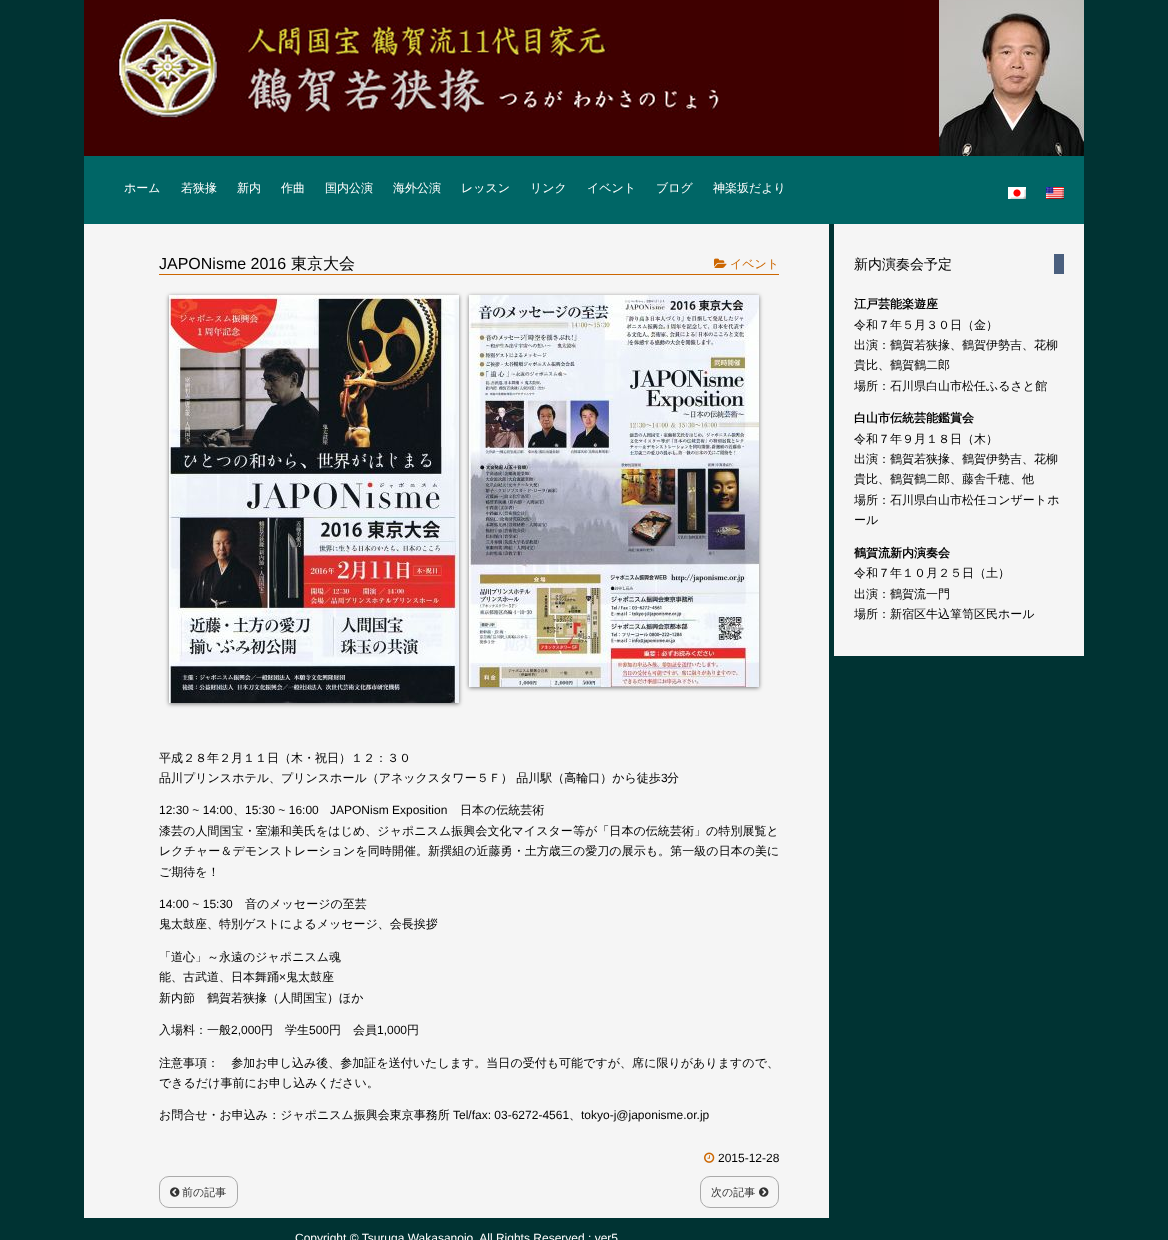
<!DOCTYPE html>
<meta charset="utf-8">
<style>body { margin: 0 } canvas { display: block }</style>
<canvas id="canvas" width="1168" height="1240"></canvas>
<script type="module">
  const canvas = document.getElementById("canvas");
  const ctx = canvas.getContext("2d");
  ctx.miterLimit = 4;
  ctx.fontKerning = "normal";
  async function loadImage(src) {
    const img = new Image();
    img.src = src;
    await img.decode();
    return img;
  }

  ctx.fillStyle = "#003333";
  ctx.fillRect(0, 0, 1168, 1240);
  ctx.fillStyle = "#006666";
  ctx.fillRect(84, 156, 1000, 68);
  ctx.drawImage(await loadImage("img1.png"), 84, 0, 1000, 156);
  ctx.font = "500 12px WenQuanYi Zen Hei";
  ctx.fillStyle = "#ffffff";
  ctx.fillText("ホーム", 124, 192);
  ctx.fillText("若狭掾", 181, 192);
  ctx.fillText("新内", 237, 192);
  ctx.fillText("作曲", 281, 192);
  ctx.fillText("国内公演", 325, 192);
  ctx.fillText("海外公演", 393, 192);
  ctx.fillText("レッスン", 461, 192);
  ctx.fillText("リンク", 530, 192);
  ctx.fillText("イベント", 587, 192);
  ctx.fillText("ブログ", 656, 192);
  ctx.fillText("神楽坂だより", 713, 192);
  ctx.drawImage(await loadImage("img2.png"), 1008, 187, 18, 12);
  ctx.drawImage(await loadImage("img3.png"), 1046, 187, 18, 12);
  ctx.fillStyle = "#f5f5f5";
  ctx.fillRect(84, 224, 745, 994);
  ctx.fillStyle = "#cc6600";
  ctx.fillRect(159, 274, 620, 1);
  ctx.font = "16px Liberation Sans";
  ctx.fillStyle = "#000000";
  ctx.fillText("JAPONisme 2016", 159, 269);
  ctx.font = "500 16px WenQuanYi Zen Hei";
  ctx.fillText("東京大会", 291, 269);
  ctx.drawImage(await loadImage("img4.png"), 714, 258, 13, 10);
  ctx.font = "500 12px WenQuanYi Zen Hei";
  ctx.fillStyle = "#cc6600";
  ctx.fillText("イベント", 730, 268);
  ctx.fillStyle = "rgba(0, 0, 0, 0.5)";
  ctx.filter = "blur(2px)";
  ctx.beginPath();
  ctx.rect(169, 296, 290, 408);
  ctx.fill();
  ctx.filter = "none";
  ctx.drawImage(await loadImage("img5.png"), 169, 295, 290, 408);
  ctx.filter = "blur(2px)";
  ctx.beginPath();
  ctx.rect(469, 296, 290, 392);
  ctx.fill();
  ctx.filter = "none";
  ctx.drawImage(await loadImage("img6.png"), 469, 295, 290, 392);
  ctx.fillStyle = "#000000";
  ctx.fillText("平成２８年２月１１日（木・祝日）１２：３０", 159, 762);
  ctx.fillText("品川プリンスホテル、プリンスホール（アネックスタワー５Ｆ） 品川駅（高輪口）から徒歩", 159, 782);
  ctx.font = "12px Liberation Sans";
  ctx.fillText("3", 661, 782);
  ctx.font = "500 12px WenQuanYi Zen Hei";
  ctx.fillText("分", 667, 782);
  ctx.font = "12px Liberation Sans";
  ctx.fillText("12:30 ~ 14:00", 159, 814);
  ctx.font = "500 12px WenQuanYi Zen Hei";
  ctx.fillText("、", 233, 814);
  ctx.font = "12px Liberation Sans";
  ctx.fillText("15:30 ~ 16:00", 245, 814);
  ctx.fillText("JAPONism Exposition", 330, 814);
  ctx.font = "500 12px WenQuanYi Zen Hei";
  ctx.fillText("日本の伝統芸術", 460, 814);
  ctx.letterSpacing = "0.05px";
  ctx.fillText("漆芸の人間国宝・室瀬和美氏をはじめ、ジャポニスム振興会文化マイスター等が「日本の伝統芸術」の特別展覧と", 159, 835);
  ctx.fillText("レクチャー＆デモンストレーションを同時開催。新撰組の近藤勇・土方歳三の愛刀の展示も。第一級の日本の美に", 159, 855);
  ctx.letterSpacing = "0px";
  ctx.fillText("ご期待を！", 159, 876);
  ctx.font = "12px Liberation Sans";
  ctx.fillText("14:00 ~ 15:30", 159, 908);
  ctx.font = "500 12px WenQuanYi Zen Hei";
  ctx.fillText("音のメッセージの至芸", 245, 908);
  ctx.fillText("鬼太鼓座、特別ゲストによるメッセージ、会長挨拶", 159, 928);
  ctx.fillText("「道心」～永遠のジャポニスム魂", 159, 961);
  ctx.fillText("能、古武道、日本舞踊", 159, 981);
  ctx.font = "12px Liberation Sans";
  ctx.fillText("×", 279, 981);
  ctx.font = "500 12px WenQuanYi Zen Hei";
  ctx.fillText("鬼太鼓座", 286, 981);
  ctx.fillText("新内節　鶴賀若狭掾（人間国宝）ほか", 159, 1002);
  ctx.fillText("入場料：一般", 159, 1034);
  ctx.font = "12px Liberation Sans";
  ctx.fillText("2,000", 231, 1034);
  ctx.font = "500 12px WenQuanYi Zen Hei";
  ctx.fillText("円　学生", 261, 1034);
  ctx.font = "12px Liberation Sans";
  ctx.fillText("500", 309, 1034);
  ctx.font = "500 12px WenQuanYi Zen Hei";
  ctx.fillText("円　会員", 329, 1034);
  ctx.font = "12px Liberation Sans";
  ctx.fillText("1,000", 377, 1034);
  ctx.font = "500 12px WenQuanYi Zen Hei";
  ctx.fillText("円", 407, 1034);
  ctx.letterSpacing = "0.03px";
  ctx.fillText("注意事項：　参加お申し込み後、参加証を送付いたします。当日の受付も可能ですが、席に限りがありますので、", 159, 1067);
  ctx.letterSpacing = "0px";
  ctx.fillText("できるだけ事前にお申し込みください。", 159, 1087);
  ctx.fillText("お問合せ・お申込み：ジャポニスム振興会東京事務所", 159, 1119);
  ctx.font = "12px Liberation Sans";
  ctx.fillText("Tel/fax: 03-6272-4561", 453, 1119);
  ctx.font = "500 12px WenQuanYi Zen Hei";
  ctx.fillText("、", 569, 1119);
  ctx.font = "12px Liberation Sans";
  ctx.fillText("tokyo-j@japonisme.or.jp", 581, 1119);
  ctx.drawImage(await loadImage("img7.png"), 704, 1152, 11, 11);
  ctx.fillText("2015-12-28", 718, 1162);
  ctx.beginPath();
  ctx.roundRect(159.5, 1176.5, 78, 31, 9.5);
  ctx.strokeStyle = "#aaaaaa";
  ctx.stroke();
  ctx.drawImage(await loadImage("img8.png"), 170, 1187, 10, 10);
  ctx.font = "500 11px WenQuanYi Zen Hei";
  ctx.fillStyle = "#333333";
  ctx.fillText("前の記事", 182, 1196);
  ctx.beginPath();
  ctx.roundRect(700.5, 1176.5, 78, 31, 9.5);
  ctx.stroke();
  ctx.fillText("次の記事", 711, 1196);
  ctx.drawImage(await loadImage("img9.png"), 759, 1187, 10, 10);
  ctx.font = "12px Liberation Sans";
  ctx.fillStyle = "#ffffff";
  ctx.fillText("Copyright © Tsuruga Wakasanojo, All Rights Reserved : ver5", 295, 1242);
  ctx.fillStyle = "#f5f5f5";
  ctx.fillRect(834, 224, 250, 432);
  ctx.fillStyle = "#4a5f7e";
  ctx.fillRect(1054, 254, 10, 20);
  ctx.font = "500 14px WenQuanYi Zen Hei";
  ctx.fillStyle = "#000000";
  ctx.fillText("新内演奏会予定", 854, 269);
  ctx.font = "bold 12px WenQuanYi Zen Hei";
  ctx.fillText("江戸芸能楽遊座", 854, 308);
  ctx.font = "500 12px WenQuanYi Zen Hei";
  ctx.fillText("令和７年５月３０日（金）", 854, 329);
  ctx.fillText("出演：鶴賀若狭掾、鶴賀伊勢吉、花柳", 854, 349);
  ctx.fillText("貴比、鶴賀鶴二郎", 854, 369);
  ctx.fillText("場所：石川県白山市松任ふるさと館", 854, 390);
  ctx.font = "bold 12px WenQuanYi Zen Hei";
  ctx.fillText("白山市伝統芸能鑑賞会", 854, 422);
  ctx.font = "500 12px WenQuanYi Zen Hei";
  ctx.fillText("令和７年９月１８日（木）", 854, 443);
  ctx.fillText("出演：鶴賀若狭掾、鶴賀伊勢吉、花柳", 854, 463);
  ctx.fillText("貴比、鶴賀鶴二郎、藤舎千穂、他", 854, 483);
  ctx.fillText("場所：石川県白山市松任コンザートホ", 854, 504);
  ctx.fillText("ール", 854, 524);
  ctx.font = "bold 12px WenQuanYi Zen Hei";
  ctx.fillText("鶴賀流新内演奏会", 854, 557);
  ctx.font = "500 12px WenQuanYi Zen Hei";
  ctx.fillText("令和７年１０月２５日（土）", 854, 577);
  ctx.fillText("出演：鶴賀流一門", 854, 598);
  ctx.fillText("場所：新宿区牛込箪笥区民ホール", 854, 618);
</script>
